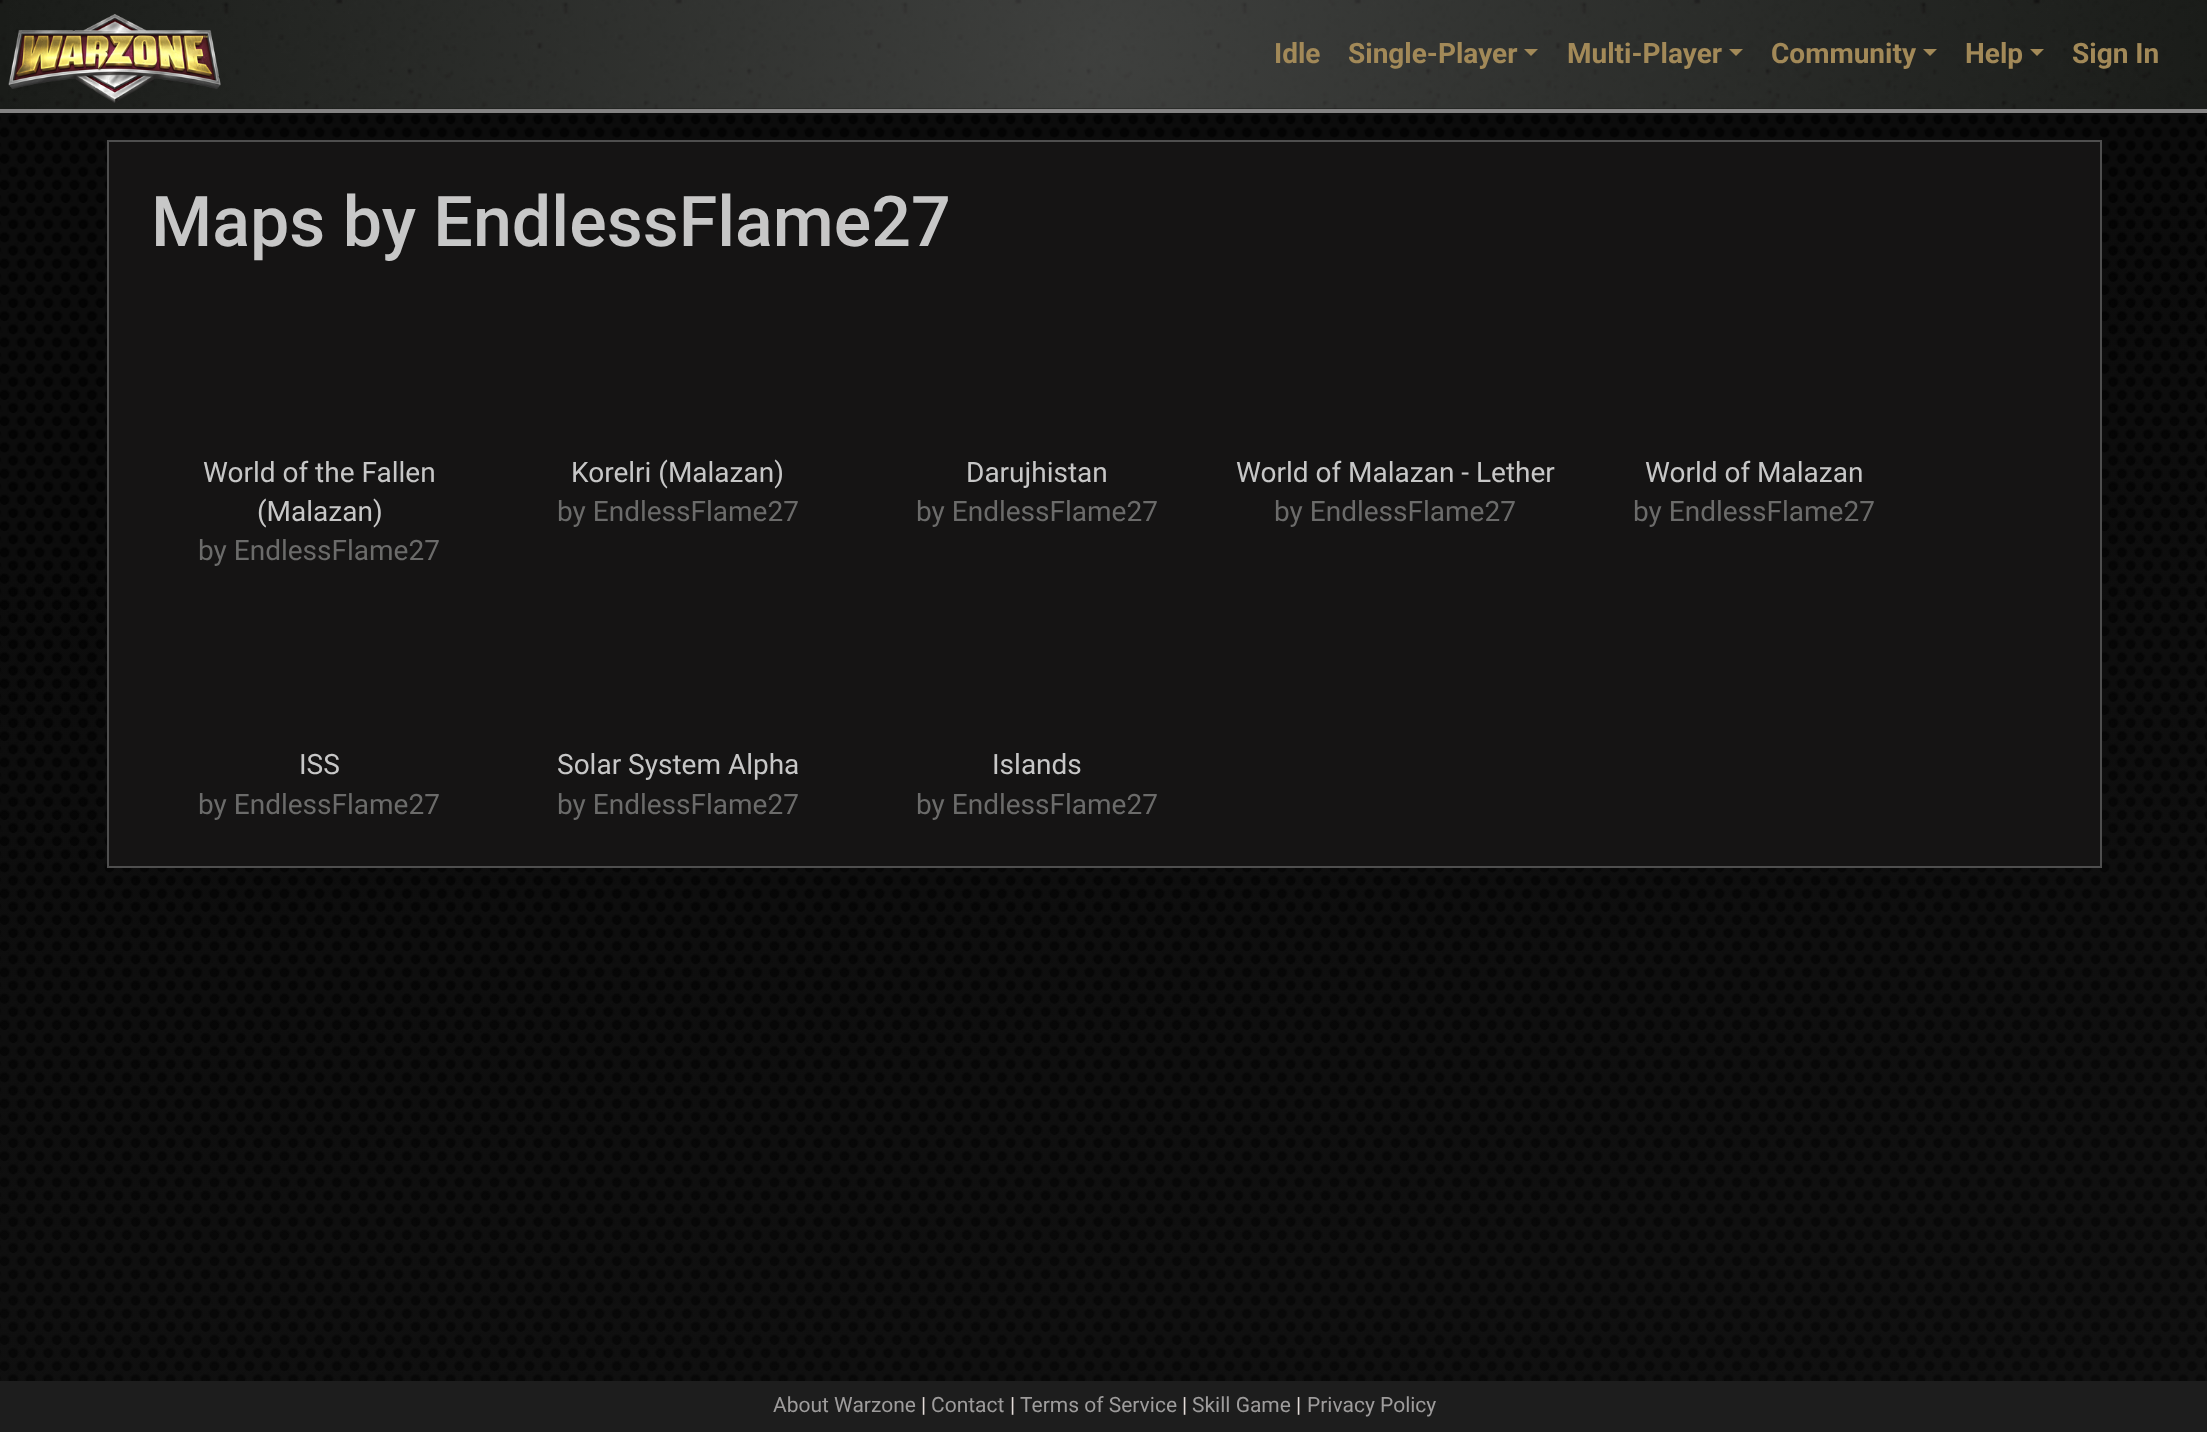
<!DOCTYPE html>
<meta charset="utf-8">
<style>body { margin: 0 } canvas { display: block }</style>
<canvas id="canvas" width="2207" height="1432"></canvas>
<script type="module">
  const canvas = document.getElementById("canvas");
  const ctx = canvas.getContext("2d");
  ctx.miterLimit = 4;
  ctx.fontKerning = "normal";
  async function loadImage(src) {
    const img = new Image();
    img.src = src;
    await img.decode();
    return img;
  }

  ctx.fillStyle = "#ffffff";
  ctx.fillRect(0, 0, 2207, 1432);
  ctx.drawImage(await loadImage("img1.png"), 0, 113, 2207, 1268);
  ctx.drawImage(await loadImage("img2.png"), 0, 0, 2207, 109);
  ctx.fillStyle = "#838282";
  ctx.fillRect(0, 109, 2207, 4);
  ctx.drawImage(await loadImage("img3.png"), 8, 14, 213, 89);
  ctx.font = "bold 28px Roboto";
  ctx.fillStyle = "#a28958";
  ctx.fillText("Idle", 1274, 63);
  ctx.fillText("Single-Player", 1348, 63);
  ctx.beginPath();
  ctx.moveTo(1524, 49);
  ctx.lineTo(1538, 49);
  ctx.lineTo(1531, 56);
  ctx.closePath();
  ctx.fill();
  ctx.fillText("Multi-Player", 1567, 63);
  ctx.beginPath();
  ctx.moveTo(1729, 49);
  ctx.lineTo(1743, 49);
  ctx.lineTo(1736, 56);
  ctx.closePath();
  ctx.fill();
  ctx.fillText("Community", 1771, 63);
  ctx.beginPath();
  ctx.moveTo(1923, 49);
  ctx.lineTo(1937, 49);
  ctx.lineTo(1930, 56);
  ctx.closePath();
  ctx.fill();
  ctx.fillText("Help", 1965, 63);
  ctx.beginPath();
  ctx.moveTo(2030, 49);
  ctx.lineTo(2044, 49);
  ctx.lineTo(2037, 56);
  ctx.closePath();
  ctx.fill();
  ctx.fillText("Sign In", 2072, 63);
  ctx.fillStyle = "#151414";
  ctx.beginPath();
  ctx.rect(108, 141, 1993, 726);
  ctx.fill();
  ctx.strokeStyle = "#4e4e4e";
  ctx.lineWidth = 2;
  ctx.stroke();
  ctx.font = "500 70px Roboto";
  ctx.fillStyle = "#c7c7c7";
  ctx.fillText("Maps by EndlessFlame27", 151, 246);
  ctx.font = "28px Roboto";
  ctx.fillText("World of the Fallen", 203, 482);
  ctx.fillText("(Malazan)", 257, 521);
  ctx.fillStyle = "#6b6b6a";
  ctx.fillText("by EndlessFlame27", 198, 560);
  ctx.fillStyle = "#c7c7c7";
  ctx.fillText("Korelri (Malazan)", 571, 482);
  ctx.fillStyle = "#6b6b6a";
  ctx.fillText("by EndlessFlame27", 557, 521);
  ctx.fillStyle = "#c7c7c7";
  ctx.fillText("Darujhistan", 966, 482);
  ctx.fillStyle = "#6b6b6a";
  ctx.fillText("by EndlessFlame27", 916, 521);
  ctx.fillStyle = "#c7c7c7";
  ctx.fillText("World of Malazan - Lether", 1236, 482);
  ctx.fillStyle = "#6b6b6a";
  ctx.fillText("by EndlessFlame27", 1274, 521);
  ctx.fillStyle = "#c7c7c7";
  ctx.fillText("World of Malazan", 1645, 482);
  ctx.fillStyle = "#6b6b6a";
  ctx.fillText("by EndlessFlame27", 1633, 521);
  ctx.fillStyle = "#c7c7c7";
  ctx.fillText("ISS", 299, 774);
  ctx.fillStyle = "#6b6b6a";
  ctx.fillText("by EndlessFlame27", 198, 814);
  ctx.fillStyle = "#c7c7c7";
  ctx.fillText("Solar System Alpha", 557, 774);
  ctx.fillStyle = "#6b6b6a";
  ctx.fillText("by EndlessFlame27", 557, 814);
  ctx.fillStyle = "#c7c7c7";
  ctx.fillText("Islands", 992, 774);
  ctx.fillStyle = "#6b6b6a";
  ctx.fillText("by EndlessFlame27", 916, 814);
  ctx.fillStyle = "#1d1d1d";
  ctx.fillRect(0, 1381, 2207, 51);
  ctx.font = "21px Roboto";
  ctx.fillStyle = "#9e9c9c";
  ctx.fillText("About Warzone", 773, 1412);
  ctx.fillStyle = "#e4dcd9";
  ctx.fillText("|", 921, 1412);
  ctx.fillStyle = "#9e9c9c";
  ctx.fillText("Contact", 931, 1412);
  ctx.fillStyle = "#e4dcd9";
  ctx.fillText("|", 1010, 1412);
  ctx.fillStyle = "#9e9c9c";
  ctx.fillText("Terms of Service", 1020, 1412);
  ctx.fillStyle = "#e4dcd9";
  ctx.fillText("|", 1182, 1412);
  ctx.fillStyle = "#9e9c9c";
  ctx.fillText("Skill Game", 1192, 1412);
  ctx.fillStyle = "#e4dcd9";
  ctx.fillText("|", 1296, 1412);
  ctx.fillStyle = "#9e9c9c";
  ctx.fillText("Privacy Policy", 1307, 1412);
</script>
